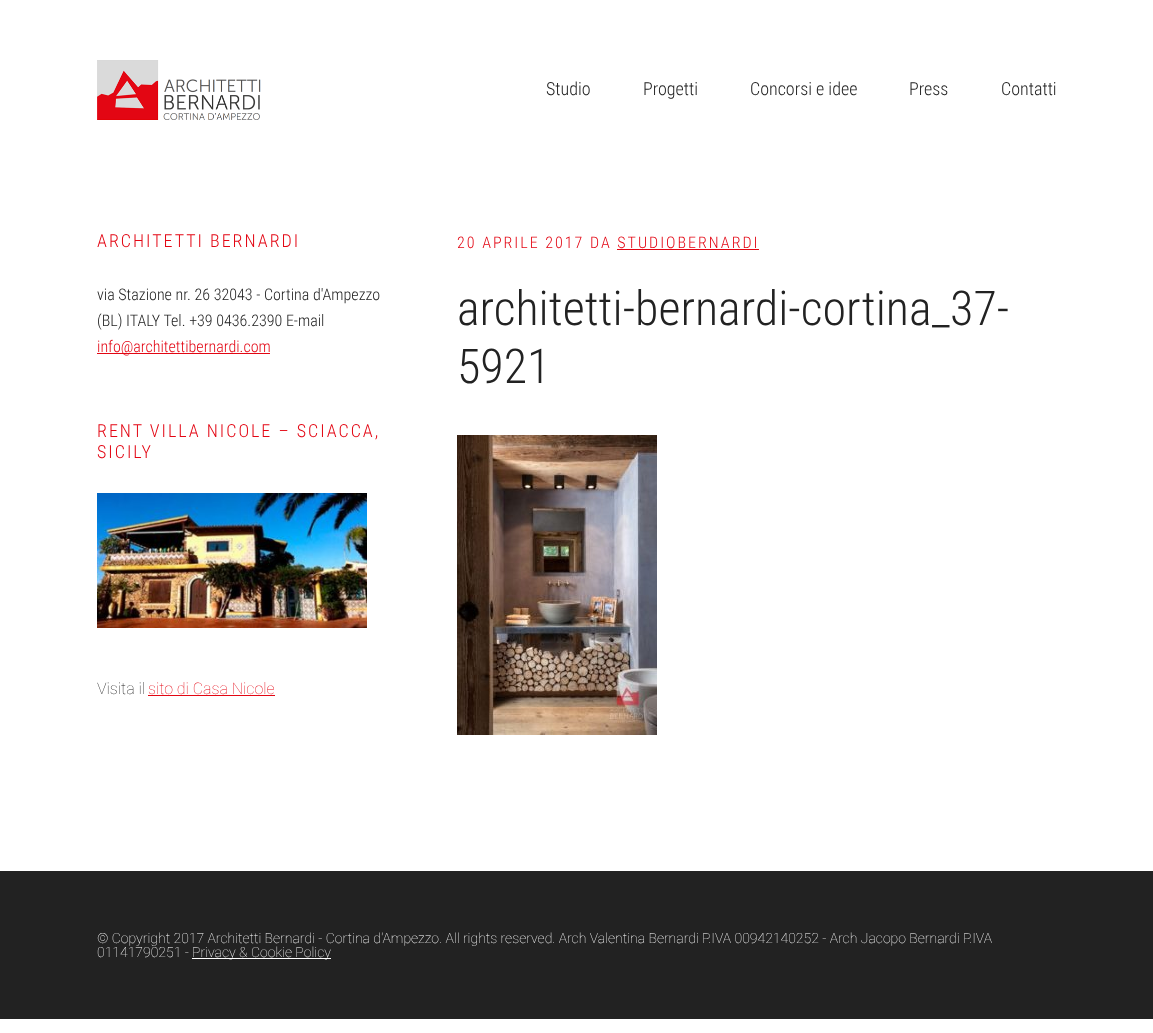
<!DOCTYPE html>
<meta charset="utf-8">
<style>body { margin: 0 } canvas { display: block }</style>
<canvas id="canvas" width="1153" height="1033"></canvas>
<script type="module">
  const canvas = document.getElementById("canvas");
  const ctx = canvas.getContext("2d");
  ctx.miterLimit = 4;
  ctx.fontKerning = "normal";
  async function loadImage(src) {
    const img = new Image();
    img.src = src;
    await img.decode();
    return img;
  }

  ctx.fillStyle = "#ffffff";
  ctx.fillRect(0, 0, 1153, 1033);
  ctx.drawImage(await loadImage("img1.png"), 97, 60, 164, 60);
  ctx.font = "300 18px Roboto Condensed";
  ctx.fillStyle = "#222222";
  ctx.fillText("Studio", 546, 95);
  ctx.fillText("Progetti", 643, 95);
  ctx.fillText("Concorsi e idee", 750, 95);
  ctx.fillText("Press", 909, 95);
  ctx.fillText("Contatti", 1001, 95);
  ctx.letterSpacing = "2px";
  ctx.fillStyle = "#e30613";
  ctx.fillText("ARCHITETTI BERNARDI", 97, 247);
  ctx.letterSpacing = "0px";
  ctx.font = "300 16px Roboto Condensed";
  ctx.fillStyle = "#222222";
  ctx.fillText("via Stazione nr. 26 32043 - Cortina d'Ampezzo", 97, 300);
  ctx.fillText("(BL) ITALY Tel. +39 0436.2390 E-mail", 97, 326);
  ctx.fillStyle = "#e30613";
  ctx.fillRect(97, 353, 173, 1);
  ctx.fillText("info@architettibernardi.com", 97, 352);
  ctx.letterSpacing = "2px";
  ctx.font = "300 18px Roboto Condensed";
  ctx.fillText("RENT VILLA NICOLE – SCIACCA,", 97, 437);
  ctx.fillText("SICILY", 97, 458);
  ctx.drawImage(await loadImage("img2.png"), 97, 493, 270, 135);
  ctx.letterSpacing = "0px";
  ctx.font = "100 16px Roboto";
  ctx.fillStyle = "#222222";
  ctx.fillText("Visita il", 97, 694);
  ctx.fillStyle = "#e30613";
  ctx.fillText("sito di Casa Nicole", 148, 694);
  ctx.fillRect(148, 695, 127, 1);
  ctx.letterSpacing = "2px";
  ctx.font = "300 16px Roboto Condensed";
  ctx.fillText("20 APRILE 2017 DA STUDIOBERNARDI", 457, 248);
  ctx.fillRect(617, 249, 142, 1);
  ctx.letterSpacing = "0px";
  ctx.font = "300 48px Roboto Condensed";
  ctx.fillStyle = "#222222";
  ctx.fillText("architetti-bernardi-cortina_37-", 457, 325);
  ctx.fillText("5921", 457, 383);
  ctx.drawImage(await loadImage("img3.png"), 457, 435, 200, 300);
  ctx.fillRect(0, 871, 1153, 148);
  ctx.font = "100 14px Roboto";
  ctx.fillStyle = "#ffffff";
  ctx.fillText("© Copyright 2017 Architetti Bernardi - Cortina d'Ampezzo. All rights reserved. Arch Valentina Bernardi P.IVA 00942140252 - Arch Jacopo Bernardi P.IVA", 97, 943);
  ctx.fillText("01141790251 -", 97, 957);
  ctx.fillRect(192, 958, 139, 1);
  ctx.fillText("Privacy & Cookie Policy", 192, 957);
</script>
